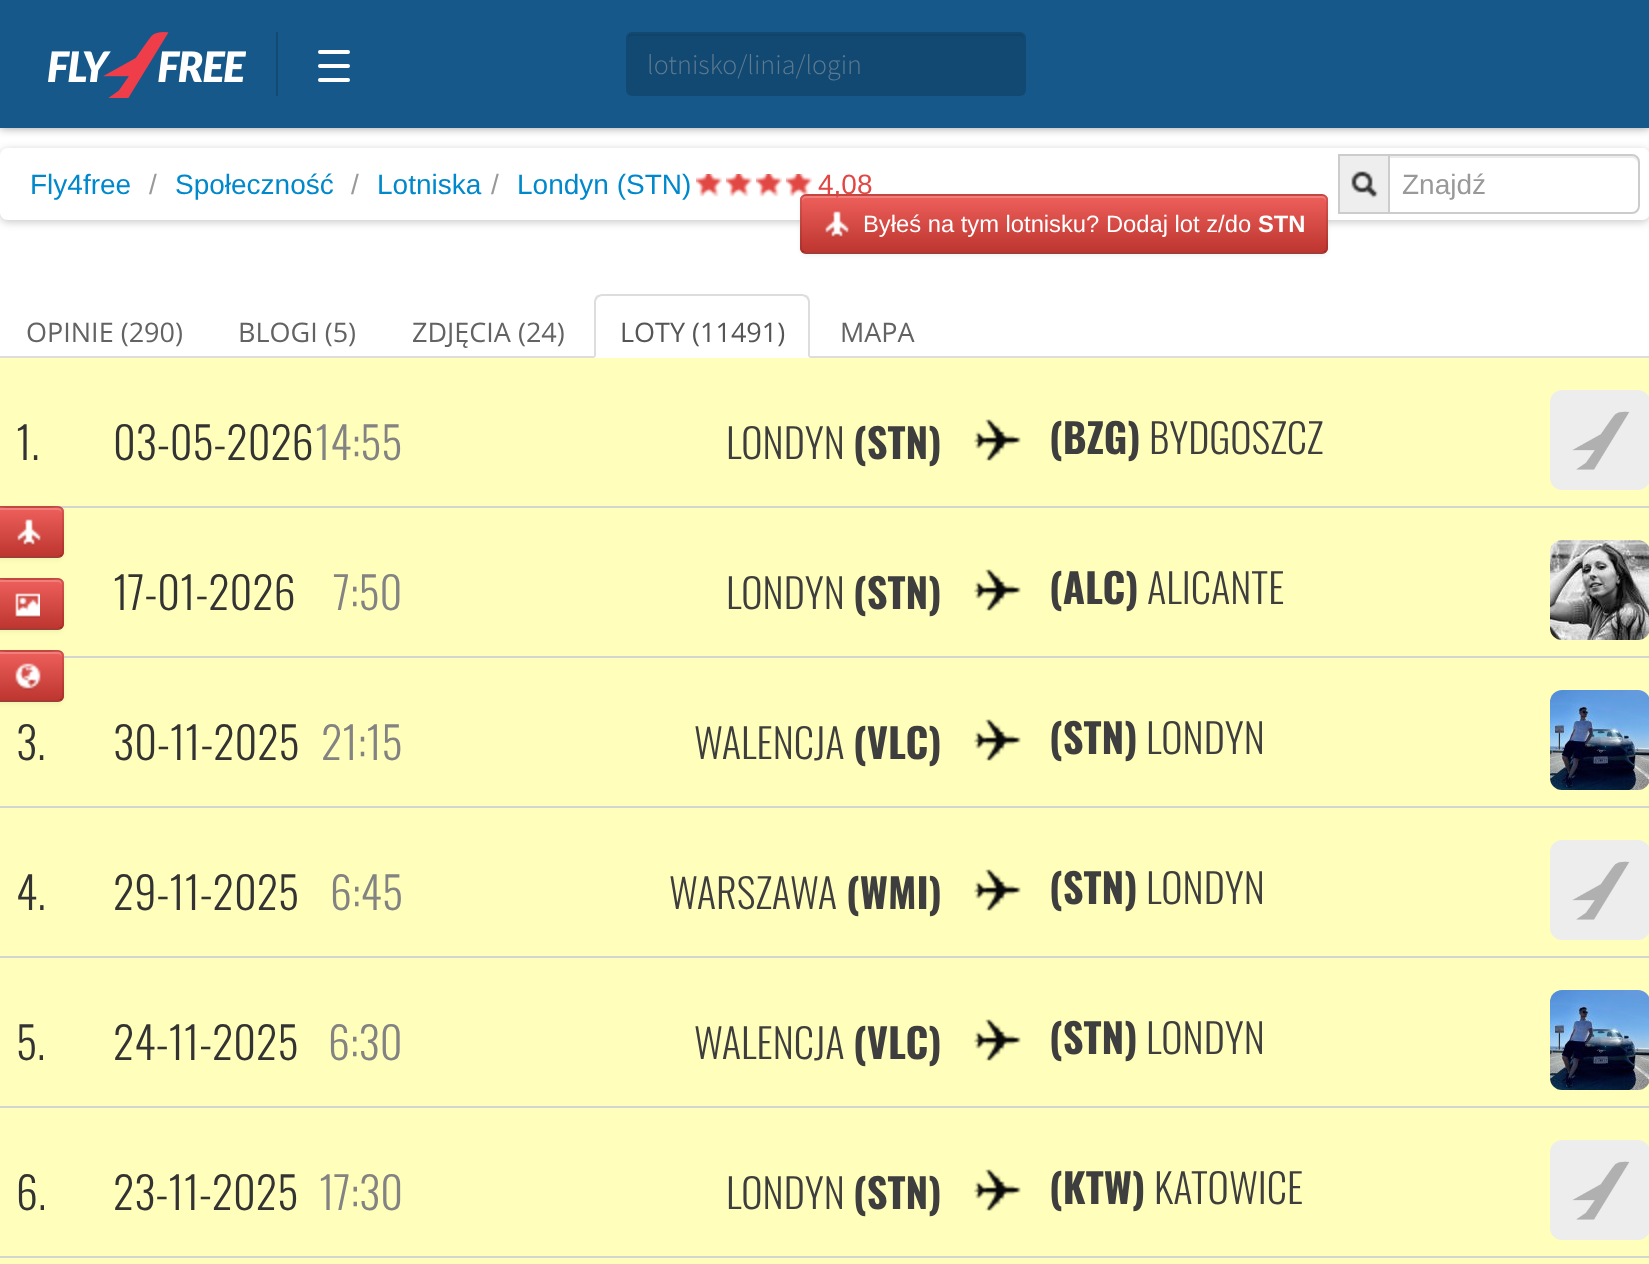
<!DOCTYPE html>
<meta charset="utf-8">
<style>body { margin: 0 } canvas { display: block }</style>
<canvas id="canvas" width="1649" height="1264"></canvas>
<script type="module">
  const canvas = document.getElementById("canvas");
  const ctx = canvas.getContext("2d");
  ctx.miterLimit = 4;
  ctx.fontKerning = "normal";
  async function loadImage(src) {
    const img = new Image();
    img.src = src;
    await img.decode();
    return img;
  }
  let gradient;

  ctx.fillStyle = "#ffffff";
  ctx.fillRect(0, 0, 1649, 1264);
  ctx.fillStyle = "rgba(0, 0, 0, 0.4)";
  ctx.filter = "blur(5px)";
  ctx.beginPath();
  ctx.rect(0, 0, 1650, 128);
  ctx.fill();
  ctx.filter = "none";
  ctx.fillStyle = "#17588a";
  ctx.fillRect(0, 0, 1649, 128);
  ctx.drawImage(await loadImage("img1.png"), 48, 32, 198, 66);
  ctx.fillStyle = "#134a74";
  ctx.fillRect(276, 32, 2, 64);
  ctx.fillStyle = "#ffffff";
  ctx.beginPath();
  ctx.roundRect(318, 78, 32, 4, 2);
  ctx.fill();
  ctx.beginPath();
  ctx.roundRect(318, 50, 32, 4, 2);
  ctx.fill();
  ctx.beginPath();
  ctx.roundRect(318, 64, 32, 4, 2);
  ctx.fill();
  ctx.fillStyle = "#124973";
  ctx.beginPath();
  ctx.roundRect(626, 32, 400, 64, 6);
  ctx.fill();
  ctx.fillStyle = "#11446a";
  ctx.beginPath();
  ctx.moveTo(632, 36);
  ctx.lineTo(1020, 36);
  ctx.bezierCurveTo(1022, 36, 1024, 38, 1024, 40);
  ctx.bezierCurveTo(1024, 37, 1024, 34, 1020, 34);
  ctx.lineTo(632, 34);
  ctx.bezierCurveTo(628, 34, 628, 37, 628, 40);
  ctx.bezierCurveTo(628, 38, 630, 36, 632, 36);
  ctx.closePath();
  ctx.fill();
  ctx.font = "300 28px Source Sans Pro";
  ctx.fillStyle = "#5e7a8f";
  ctx.fillText("lotnisko/linia/login", 647, 74);
  ctx.save();
  ctx.beginPath();
  ctx.moveTo(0, 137);
  ctx.lineTo(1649, 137);
  ctx.lineTo(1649, 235);
  ctx.lineTo(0, 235);
  ctx.closePath();
  ctx.moveTo(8, 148);
  ctx.lineTo(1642, 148);
  ctx.bezierCurveTo(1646.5, 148, 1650, 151.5, 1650, 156);
  ctx.lineTo(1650, 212);
  ctx.bezierCurveTo(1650, 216.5, 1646.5, 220, 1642, 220);
  ctx.lineTo(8, 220);
  ctx.bezierCurveTo(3.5, 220, 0, 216.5, 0, 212);
  ctx.lineTo(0, 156);
  ctx.bezierCurveTo(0, 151.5, 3.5, 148, 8, 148);
  ctx.closePath();
  ctx.clip("evenodd");
  ctx.fillStyle = "rgba(0, 0, 0, 0.22)";
  ctx.filter = "blur(4px)";
  ctx.beginPath();
  ctx.roundRect(0, 150, 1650, 72, 8);
  ctx.fill();
  ctx.filter = "none";
  ctx.restore();
  ctx.font = "28px Liberation Sans";
  ctx.fillStyle = "#0088cc";
  ctx.fillText("Fly4free", 30, 194);
  ctx.fillStyle = "#999999";
  ctx.fillText("/", 149, 194);
  ctx.fillStyle = "#0088cc";
  ctx.fillText("Społeczność", 175, 194);
  ctx.fillStyle = "#999999";
  ctx.fillText("/", 351, 194);
  ctx.fillStyle = "#0088cc";
  ctx.fillText("Lotniska", 377, 194);
  ctx.fillStyle = "#999999";
  ctx.fillText("/", 491, 194);
  ctx.fillStyle = "#0088cc";
  ctx.fillText("Londyn (STN)", 517, 194);
  ctx.drawImage(await loadImage("img2.png"), 696, 174, 26, 23);
  ctx.drawImage(await loadImage("img2.png"), 726, 174, 26, 23);
  ctx.drawImage(await loadImage("img2.png"), 756, 174, 26, 23);
  ctx.fillStyle = "rgba(0, 0, 0, 0.05)";
  ctx.filter = "blur(2px)";
  ctx.beginPath();
  ctx.roundRect(800, 196, 528, 60, 6);
  ctx.fill();
  ctx.filter = "none";
  ctx.fillStyle = "#da4f49";
  ctx.beginPath();
  ctx.roundRect(800, 194, 528, 60, 6);
  ctx.fill();
  ctx.save();
  ctx.beginPath();
  ctx.roundRect(800, 194, 528, 60, 6);
  ctx.clip();
  gradient = ctx.createLinearGradient(1064, 196, 1064, 252);
  gradient.addColorStop(0, "#ee5f5b");
  gradient.addColorStop(1, "#bd362f");
  ctx.fillStyle = gradient;
  ctx.fillRect(800, 196, 528, 56);
  ctx.restore();
  ctx.fillStyle = "rgba(255, 255, 255, 0.2)";
  ctx.beginPath();
  ctx.moveTo(806, 198);
  ctx.lineTo(1322, 198);
  ctx.bezierCurveTo(1324, 198, 1326, 200, 1326, 202);
  ctx.lineTo(1326, 200);
  ctx.bezierCurveTo(1326, 198, 1324, 196, 1322, 196);
  ctx.lineTo(806, 196);
  ctx.bezierCurveTo(804, 196, 802, 198, 802, 200);
  ctx.lineTo(802, 202);
  ctx.bezierCurveTo(802, 200, 804, 198, 806, 198);
  ctx.closePath();
  ctx.fill();
  ctx.beginPath();
  ctx.moveTo(1325.5, 251.5);
  ctx.bezierCurveTo(1324.5, 252.5, 1323.5, 253, 1322, 253);
  ctx.lineTo(806, 253);
  ctx.bezierCurveTo(804.5, 253, 803.5, 252.5, 802.5, 251.5);
  ctx.strokeStyle = "rgba(0, 0, 0, 0.25)";
  ctx.lineWidth = 2;
  ctx.stroke();
  ctx.beginPath();
  ctx.moveTo(802.5, 251.5);
  ctx.bezierCurveTo(801.5, 250.5, 801, 249.5, 801, 248);
  ctx.lineTo(801, 200);
  ctx.bezierCurveTo(801, 198.5, 801.5, 197.5, 802.5, 196.5);
  ctx.bezierCurveTo(803.5, 195.5, 804.5, 195, 806, 195);
  ctx.lineTo(1322, 195);
  ctx.bezierCurveTo(1323.5, 195, 1324.5, 195.5, 1325.5, 196.5);
  ctx.bezierCurveTo(1326.5, 197.5, 1327, 198.5, 1327, 200);
  ctx.lineTo(1327, 248);
  ctx.bezierCurveTo(1327, 249.5, 1326.5, 250.5, 1325.5, 251.5);
  ctx.strokeStyle = "rgba(0, 0, 0, 0.1)";
  ctx.stroke();
  ctx.drawImage(await loadImage("img3.png"), 786, 174, 26, 23);
  ctx.fillStyle = "#e14743";
  ctx.fillText("4,08", 818, 194);
  ctx.fillStyle = "#eeeeee";
  ctx.beginPath();
  ctx.rect(1339, 155, 50, 58);
  ctx.fill();
  ctx.strokeStyle = "#cccccc";
  ctx.stroke();
  ctx.drawImage(await loadImage("img4.png"), 1351, 171, 27, 27);
  ctx.fillStyle = "#ffffff";
  ctx.beginPath();
  ctx.roundRect(1388, 154, 252, 60, [0, 8, 8, 0]);
  ctx.fill();
  ctx.fillStyle = "#ececec";
  ctx.beginPath();
  ctx.moveTo(1390, 158);
  ctx.lineTo(1632, 158);
  ctx.bezierCurveTo(1635, 158, 1638, 161, 1638, 164);
  ctx.lineTo(1638, 162);
  ctx.bezierCurveTo(1638, 159, 1635, 156, 1632, 156);
  ctx.lineTo(1390, 156);
  ctx.closePath();
  ctx.fill();
  ctx.beginPath();
  ctx.roundRect(1389, 155, 250, 58, [0, 7, 7, 0]);
  ctx.stroke();
  ctx.fillStyle = "#999999";
  ctx.fillText("Znajdź", 1402, 194);
  ctx.drawImage(await loadImage("img5.png"), 825, 211, 24, 27);
  ctx.font = "23.75px Liberation Sans";
  ctx.fillStyle = "#ffffff";
  ctx.fillText("Byłeś na tym lotnisku? Dodaj lot z/do", 863, 232);
  ctx.font = "bold 23.75px Liberation Sans";
  ctx.fillText("STN", 1258, 232);
  ctx.fillStyle = "#dddddd";
  ctx.fillRect(0, 356, 1649, 2);
  ctx.font = "27px Open Sans";
  ctx.fillStyle = "#636363";
  ctx.fillText("OPINIE (290)", 26, 342);
  ctx.fillText("BLOGI (5)", 238, 342);
  ctx.fillText("ZDJĘCIA (24)", 412, 342);
  ctx.fillStyle = "#ffffff";
  ctx.beginPath();
  ctx.roundRect(594, 294, 216, 64, [8, 8, 0, 0]);
  ctx.fill();
  ctx.fillStyle = "#dddddd";
  ctx.beginPath();
  ctx.moveTo(602, 294);
  ctx.bezierCurveTo(600, 294, 598, 295, 596, 296);
  ctx.lineTo(598, 298);
  ctx.bezierCurveTo(599, 297, 600, 296, 602, 296);
  ctx.lineTo(802, 296);
  ctx.bezierCurveTo(804, 296, 805, 297, 806, 298);
  ctx.lineTo(808, 296);
  ctx.bezierCurveTo(806, 295, 804, 294, 802, 294);
  ctx.closePath();
  ctx.fill();
  ctx.beginPath();
  ctx.moveTo(810, 358);
  ctx.lineTo(810, 302);
  ctx.bezierCurveTo(810, 300, 809, 298, 808, 296);
  ctx.lineTo(806, 298);
  ctx.bezierCurveTo(807, 299, 808, 300, 808, 302);
  ctx.lineTo(808, 356);
  ctx.closePath();
  ctx.fill();
  ctx.beginPath();
  ctx.moveTo(594, 358);
  ctx.lineTo(596, 356);
  ctx.lineTo(596, 302);
  ctx.bezierCurveTo(596, 300, 597, 299, 598, 298);
  ctx.lineTo(596, 296);
  ctx.bezierCurveTo(595, 298, 594, 300, 594, 302);
  ctx.closePath();
  ctx.fill();
  ctx.fillStyle = "#555555";
  ctx.fillText("LOTY (11491)", 620, 342);
  ctx.fillStyle = "#636363";
  ctx.fillText("MAPA", 840, 342);
  ctx.fillStyle = "#ffffbb";
  ctx.fillRect(0, 358, 1649, 148);
  ctx.fillStyle = "#d3d5d0";
  ctx.fillRect(58, 506, 1591, 2);
  ctx.drawImage(await loadImage("img6.png"), 1550, 390, 99, 100);
  ctx.font = "300 44px Oswald";
  ctx.fillStyle = "#333333";
  ctx.fillText("1.", 16, 460);
  ctx.fillText("03-05-2026", 113, 460);
  ctx.fillStyle = "#838383";
  ctx.fillText("14:55", 315, 460);
  ctx.font = "300 40.5px Oswald";
  ctx.fillStyle = "#3e3e3e";
  ctx.fillText("LONDYN", 726, 459);
  ctx.font = "bold 40.5px Oswald";
  ctx.fillText("(STN)", 853, 459);
  ctx.drawImage(await loadImage("img7.png"), 974, 419, 47, 42);
  ctx.fillText("(BZG)", 1049, 454);
  ctx.font = "300 40.5px Oswald";
  ctx.fillText("BYDGOSZCZ", 1149, 454);
  ctx.fillStyle = "#ffffbb";
  ctx.fillRect(0, 508, 1649, 148);
  ctx.fillStyle = "#d3d5d0";
  ctx.fillRect(64, 656, 1585, 2);
  ctx.drawImage(await loadImage("img8.png"), 1550, 540, 99, 100);
  ctx.font = "300 44px Oswald";
  ctx.fillStyle = "#333333";
  ctx.fillText("17-01-2026", 113, 610);
  ctx.fillStyle = "#838383";
  ctx.fillText("7:50", 333, 610);
  ctx.font = "300 40.5px Oswald";
  ctx.fillStyle = "#3e3e3e";
  ctx.fillText("LONDYN", 726, 609);
  ctx.font = "bold 40.5px Oswald";
  ctx.fillText("(STN)", 853, 609);
  ctx.drawImage(await loadImage("img7.png"), 974, 569, 47, 42);
  ctx.fillText("(ALC)", 1049, 604);
  ctx.font = "300 40.5px Oswald";
  ctx.fillText("ALICANTE", 1147, 604);
  ctx.fillStyle = "#ffffbb";
  ctx.fillRect(0, 658, 1649, 148);
  ctx.fillStyle = "#d3d5d0";
  ctx.fillRect(0, 806, 1649, 2);
  ctx.drawImage(await loadImage("img9.png"), 1550, 690, 99, 100);
  ctx.font = "300 44px Oswald";
  ctx.fillStyle = "#333333";
  ctx.fillText("3.", 16, 760);
  ctx.fillText("30-11-2025", 113, 760);
  ctx.fillStyle = "#838383";
  ctx.fillText("21:15", 321, 760);
  ctx.font = "300 40.5px Oswald";
  ctx.fillStyle = "#3e3e3e";
  ctx.fillText("WALENCJA", 694, 759);
  ctx.font = "bold 40.5px Oswald";
  ctx.fillText("(VLC)", 853, 759);
  ctx.drawImage(await loadImage("img7.png"), 974, 719, 47, 42);
  ctx.fillText("(STN)", 1049, 754);
  ctx.font = "300 40.5px Oswald";
  ctx.fillText("LONDYN", 1146, 754);
  ctx.fillStyle = "#ffffbb";
  ctx.fillRect(0, 808, 1649, 148);
  ctx.fillStyle = "#d3d5d0";
  ctx.fillRect(0, 956, 1649, 2);
  ctx.drawImage(await loadImage("img10.png"), 1550, 840, 99, 100);
  ctx.font = "300 44px Oswald";
  ctx.fillStyle = "#333333";
  ctx.fillText("4.", 16, 910);
  ctx.fillText("29-11-2025", 113, 910);
  ctx.fillStyle = "#838383";
  ctx.fillText("6:45", 330, 910);
  ctx.font = "300 40.5px Oswald";
  ctx.fillStyle = "#3e3e3e";
  ctx.fillText("WARSZAWA", 669, 909);
  ctx.font = "bold 40.5px Oswald";
  ctx.fillText("(WMI)", 846, 909);
  ctx.drawImage(await loadImage("img7.png"), 974, 869, 47, 42);
  ctx.fillText("(STN)", 1049, 904);
  ctx.font = "300 40.5px Oswald";
  ctx.fillText("LONDYN", 1146, 904);
  ctx.fillStyle = "#ffffbb";
  ctx.fillRect(0, 958, 1649, 148);
  ctx.fillStyle = "#d3d5d0";
  ctx.fillRect(0, 1106, 1649, 2);
  ctx.drawImage(await loadImage("img9.png"), 1550, 990, 99, 100);
  ctx.font = "300 44px Oswald";
  ctx.fillStyle = "#333333";
  ctx.fillText("5.", 16, 1060);
  ctx.fillText("24-11-2025", 113, 1060);
  ctx.fillStyle = "#838383";
  ctx.fillText("6:30", 328, 1060);
  ctx.font = "300 40.5px Oswald";
  ctx.fillStyle = "#3e3e3e";
  ctx.fillText("WALENCJA", 694, 1059);
  ctx.font = "bold 40.5px Oswald";
  ctx.fillText("(VLC)", 853, 1059);
  ctx.drawImage(await loadImage("img7.png"), 974, 1019, 47, 42);
  ctx.fillText("(STN)", 1049, 1054);
  ctx.font = "300 40.5px Oswald";
  ctx.fillText("LONDYN", 1146, 1054);
  ctx.fillStyle = "#ffffbb";
  ctx.fillRect(0, 1108, 1649, 148);
  ctx.fillStyle = "#d3d5d0";
  ctx.fillRect(0, 1256, 1649, 2);
  ctx.drawImage(await loadImage("img10.png"), 1550, 1140, 99, 100);
  ctx.font = "300 44px Oswald";
  ctx.fillStyle = "#333333";
  ctx.fillText("6.", 16, 1210);
  ctx.fillText("23-11-2025", 113, 1210);
  ctx.fillStyle = "#838383";
  ctx.fillText("17:30", 319, 1210);
  ctx.font = "300 40.5px Oswald";
  ctx.fillStyle = "#3e3e3e";
  ctx.fillText("LONDYN", 726, 1209);
  ctx.font = "bold 40.5px Oswald";
  ctx.fillText("(STN)", 853, 1209);
  ctx.drawImage(await loadImage("img7.png"), 974, 1169, 47, 42);
  ctx.fillText("(KTW)", 1049, 1204);
  ctx.font = "300 40.5px Oswald";
  ctx.fillText("KATOWICE", 1154, 1204);
  ctx.fillStyle = "#ffffbb";
  ctx.fillRect(0, 1258, 1649, 6);
  ctx.fillStyle = "rgba(0, 0, 0, 0.05)";
  ctx.filter = "blur(2px)";
  ctx.beginPath();
  ctx.roundRect(-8, 508, 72, 52, 6);
  ctx.fill();
  ctx.filter = "none";
  ctx.fillStyle = "#da4f49";
  ctx.beginPath();
  ctx.roundRect(-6, 506, 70, 52, 6);
  ctx.fill();
  ctx.save();
  ctx.beginPath();
  ctx.roundRect(-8, 506, 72, 52, 6);
  ctx.clip();
  gradient = ctx.createLinearGradient(28, 508, 28, 556);
  gradient.addColorStop(0, "#ee5f5b");
  gradient.addColorStop(1, "#bd362f");
  ctx.fillStyle = gradient;
  ctx.fillRect(0, 508, 64, 48);
  ctx.restore();
  ctx.fillStyle = "rgba(255, 255, 255, 0.2)";
  ctx.beginPath();
  ctx.moveTo(-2, 510);
  ctx.lineTo(58, 510);
  ctx.bezierCurveTo(60, 510, 62, 512, 62, 514);
  ctx.bezierCurveTo(62, 505, 56, 508, 48, 508);
  ctx.lineTo(8, 508);
  ctx.bezierCurveTo(0, 508, -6, 505, -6, 514);
  ctx.bezierCurveTo(-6, 512, -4, 510, -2, 510);
  ctx.closePath();
  ctx.fill();
  ctx.beginPath();
  ctx.moveTo(61.5, 555.5);
  ctx.bezierCurveTo(60.5, 556.5, 59.5, 557, 58, 557);
  ctx.lineTo(-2, 557);
  ctx.bezierCurveTo(-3.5, 557, -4.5, 556.5, -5.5, 555.5);
  ctx.strokeStyle = "rgba(0, 0, 0, 0.25)";
  ctx.stroke();
  ctx.beginPath();
  ctx.moveTo(-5.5, 555.5);
  ctx.bezierCurveTo(-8, 553, -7, 548, -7, 545.5);
  ctx.lineTo(-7, 518.5);
  ctx.bezierCurveTo(-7, 505, -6, 507, 8, 507);
  ctx.lineTo(48, 507);
  ctx.bezierCurveTo(62, 507, 63, 505, 63, 518.5);
  ctx.lineTo(63, 545.5);
  ctx.bezierCurveTo(63, 548, 64, 553, 61.5, 555.5);
  ctx.strokeStyle = "rgba(0, 0, 0, 0.1)";
  ctx.stroke();
  ctx.drawImage(await loadImage("img11.png"), 17, 519, 24, 27);
  ctx.fillStyle = "rgba(0, 0, 0, 0.05)";
  ctx.filter = "blur(2px)";
  ctx.beginPath();
  ctx.roundRect(-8, 580, 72, 52, 6);
  ctx.fill();
  ctx.filter = "none";
  ctx.fillStyle = "#da4f49";
  ctx.beginPath();
  ctx.roundRect(-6, 578, 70, 52, 6);
  ctx.fill();
  ctx.save();
  ctx.beginPath();
  ctx.roundRect(-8, 578, 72, 52, 6);
  ctx.clip();
  gradient = ctx.createLinearGradient(28, 580, 28, 628);
  gradient.addColorStop(0, "#ee5f5b");
  gradient.addColorStop(1, "#bd362f");
  ctx.fillStyle = gradient;
  ctx.fillRect(0, 580, 64, 48);
  ctx.restore();
  ctx.fillStyle = "rgba(255, 255, 255, 0.2)";
  ctx.beginPath();
  ctx.moveTo(-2, 582);
  ctx.lineTo(58, 582);
  ctx.bezierCurveTo(60, 582, 62, 584, 62, 586);
  ctx.bezierCurveTo(62, 577, 56, 580, 48, 580);
  ctx.lineTo(8, 580);
  ctx.bezierCurveTo(0, 580, -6, 577, -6, 586);
  ctx.bezierCurveTo(-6, 584, -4, 582, -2, 582);
  ctx.closePath();
  ctx.fill();
  ctx.beginPath();
  ctx.moveTo(61.5, 627.5);
  ctx.bezierCurveTo(60.5, 628.5, 59.5, 629, 58, 629);
  ctx.lineTo(-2, 629);
  ctx.bezierCurveTo(-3.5, 629, -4.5, 628.5, -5.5, 627.5);
  ctx.strokeStyle = "rgba(0, 0, 0, 0.25)";
  ctx.stroke();
  ctx.beginPath();
  ctx.moveTo(-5.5, 627.5);
  ctx.bezierCurveTo(-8, 625, -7, 620, -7, 617.5);
  ctx.lineTo(-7, 590.5);
  ctx.bezierCurveTo(-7, 577, -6, 579, 8, 579);
  ctx.lineTo(48, 579);
  ctx.bezierCurveTo(62, 579, 63, 577, 63, 590.5);
  ctx.lineTo(63, 617.5);
  ctx.bezierCurveTo(63, 620, 64, 625, 61.5, 627.5);
  ctx.strokeStyle = "rgba(0, 0, 0, 0.1)";
  ctx.stroke();
  ctx.drawImage(await loadImage("img12.png"), 15, 593, 25, 25);
  ctx.fillStyle = "rgba(0, 0, 0, 0.05)";
  ctx.filter = "blur(2px)";
  ctx.beginPath();
  ctx.roundRect(-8, 652, 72, 52, 6);
  ctx.fill();
  ctx.filter = "none";
  ctx.fillStyle = "#da4f49";
  ctx.beginPath();
  ctx.roundRect(-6, 650, 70, 52, 6);
  ctx.fill();
  ctx.save();
  ctx.beginPath();
  ctx.roundRect(-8, 650, 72, 52, 6);
  ctx.clip();
  gradient = ctx.createLinearGradient(28, 652, 28, 700);
  gradient.addColorStop(0, "#ee5f5b");
  gradient.addColorStop(1, "#bd362f");
  ctx.fillStyle = gradient;
  ctx.fillRect(0, 652, 64, 48);
  ctx.restore();
  ctx.fillStyle = "rgba(255, 255, 255, 0.2)";
  ctx.beginPath();
  ctx.moveTo(-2, 654);
  ctx.lineTo(58, 654);
  ctx.bezierCurveTo(60, 654, 62, 656, 62, 658);
  ctx.bezierCurveTo(62, 649, 56, 652, 48, 652);
  ctx.lineTo(8, 652);
  ctx.bezierCurveTo(0, 652, -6, 649, -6, 658);
  ctx.bezierCurveTo(-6, 656, -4, 654, -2, 654);
  ctx.closePath();
  ctx.fill();
  ctx.beginPath();
  ctx.moveTo(61.5, 699.5);
  ctx.bezierCurveTo(60.5, 700.5, 59.5, 701, 58, 701);
  ctx.lineTo(-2, 701);
  ctx.bezierCurveTo(-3.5, 701, -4.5, 700.5, -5.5, 699.5);
  ctx.strokeStyle = "rgba(0, 0, 0, 0.25)";
  ctx.stroke();
  ctx.beginPath();
  ctx.moveTo(-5.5, 699.5);
  ctx.bezierCurveTo(-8, 697, -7, 692, -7, 689.5);
  ctx.lineTo(-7, 662.5);
  ctx.bezierCurveTo(-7, 649, -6, 651, 8, 651);
  ctx.lineTo(48, 651);
  ctx.bezierCurveTo(62, 651, 63, 649, 63, 662.5);
  ctx.lineTo(63, 689.5);
  ctx.bezierCurveTo(63, 692, 64, 697, 61.5, 699.5);
  ctx.strokeStyle = "rgba(0, 0, 0, 0.1)";
  ctx.stroke();
  ctx.drawImage(await loadImage("img13.png"), 15, 663, 26, 27);
</script>
